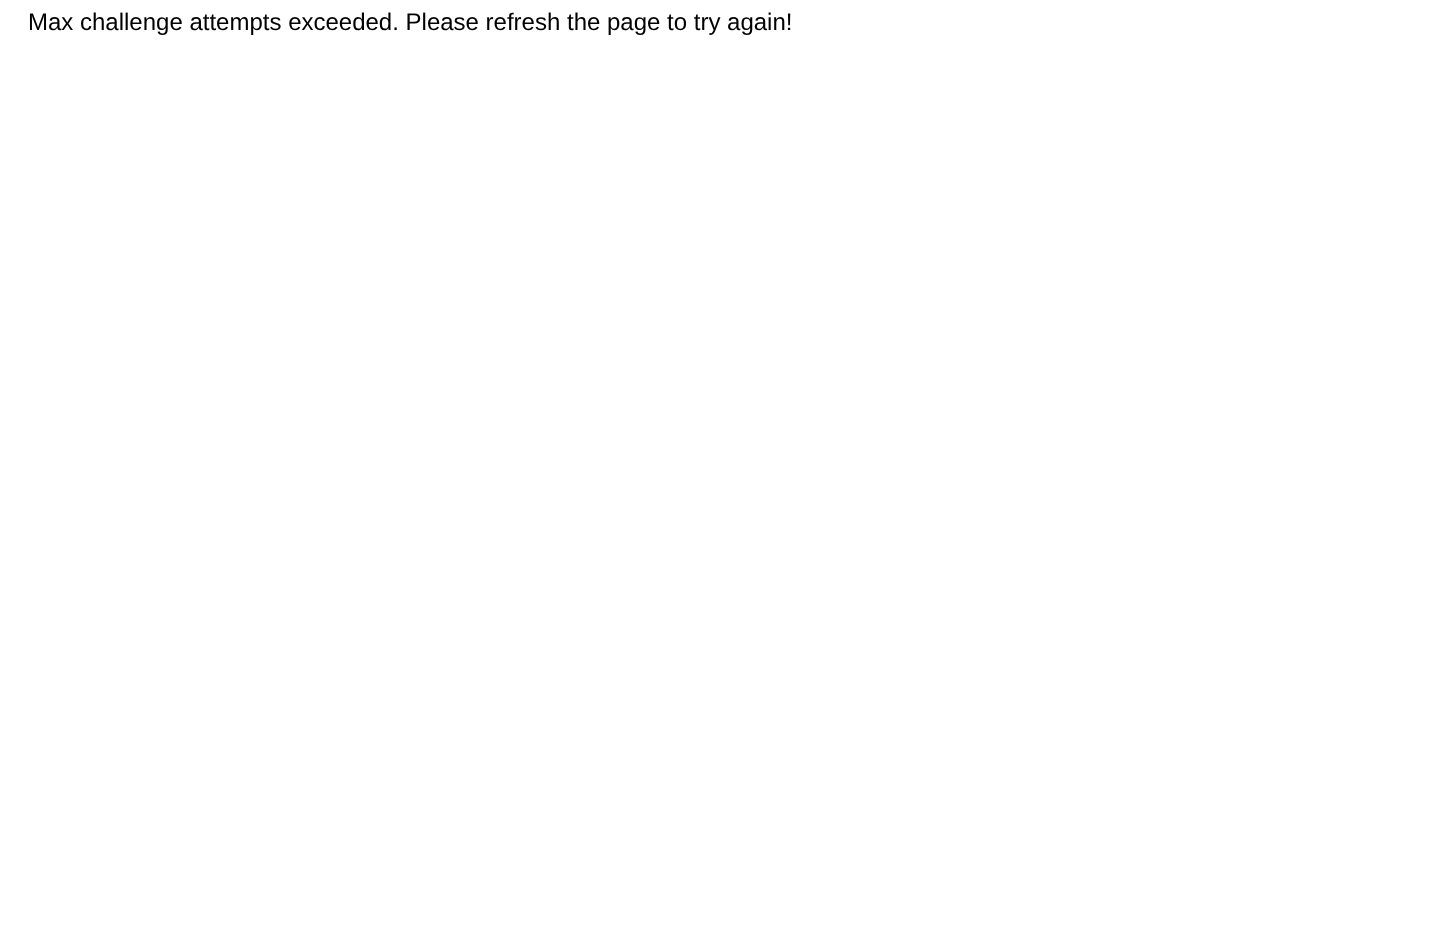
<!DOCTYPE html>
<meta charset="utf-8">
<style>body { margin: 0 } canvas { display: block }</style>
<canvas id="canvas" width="1451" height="937"></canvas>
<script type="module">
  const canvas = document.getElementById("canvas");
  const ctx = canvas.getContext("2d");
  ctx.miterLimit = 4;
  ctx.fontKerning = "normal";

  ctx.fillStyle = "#ffffff";
  ctx.fillRect(0, 0, 1451, 937);
  ctx.font = "24px Liberation Sans";
  ctx.fillStyle = "#000000";
  ctx.fillText("Max challenge attempts exceeded. Please refresh the page to try again!", 28, 30);
</script>
